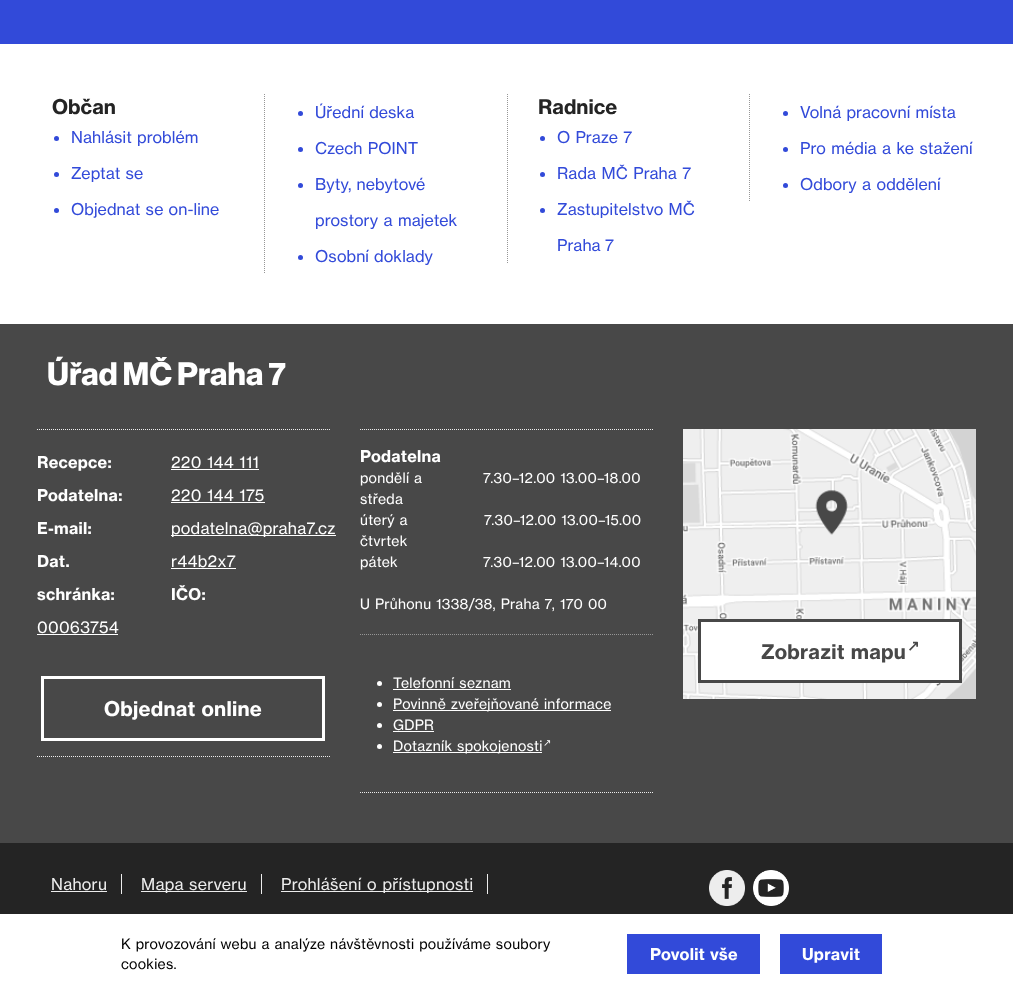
<!DOCTYPE html>
<meta charset="utf-8">
<style>body { margin: 0 } canvas { display: block }</style>
<canvas id="canvas" width="1013" height="994"></canvas>
<script type="module">
  const canvas = document.getElementById("canvas");
  const ctx = canvas.getContext("2d");
  ctx.miterLimit = 4;
  ctx.fontKerning = "normal";
  async function loadImage(src) {
    const img = new Image();
    img.src = src;
    await img.decode();
    return img;
  }

  ctx.fillStyle = "#ffffff";
  ctx.fillRect(0, 0, 1013, 994);
  ctx.fillStyle = "#324ad9";
  ctx.fillRect(0, 0, 1013, 44);
  ctx.font = "bold 20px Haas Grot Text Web";
  ctx.fillStyle = "#242424";
  ctx.fillText("Občan", 52, 114);
  ctx.fillStyle = "#324ad9";
  ctx.beginPath();
  ctx.arc(56.5, 138.5, 2.5, 0, Math.PI * 2);
  ctx.fill();
  ctx.letterSpacing = "0.1px";
  ctx.wordSpacing = "0.75px";
  ctx.font = "16px Haas Grot Text Web";
  ctx.fillText("Nahlásit problém", 71, 143);
  ctx.beginPath();
  ctx.arc(56.5, 174.5, 2.5, 0, Math.PI * 2);
  ctx.fill();
  ctx.fillText("Zeptat se", 71, 179);
  ctx.beginPath();
  ctx.arc(56.5, 210.5, 2.5, 0, Math.PI * 2);
  ctx.fill();
  ctx.fillText("Objednat se on-line", 71, 215);
  ctx.beginPath();
  ctx.moveTo(264.5, 94);
  ctx.lineTo(264.5, 274);
  ctx.strokeStyle = "#969696";
  ctx.setLineDash([1, 1]);
  ctx.stroke();
  ctx.beginPath();
  ctx.arc(300.5, 113.5, 2.5, 0, Math.PI * 2);
  ctx.fill();
  ctx.fillText("Úřední deska", 315, 118);
  ctx.beginPath();
  ctx.arc(300.5, 149.5, 2.5, 0, Math.PI * 2);
  ctx.fill();
  ctx.fillText("Czech POINT", 315, 154);
  ctx.beginPath();
  ctx.arc(300.5, 185.5, 2.5, 0, Math.PI * 2);
  ctx.fill();
  ctx.fillText("Byty, nebytové", 315, 190);
  ctx.wordSpacing = "1px";
  ctx.fillText("prostory a majetek", 315, 226);
  ctx.beginPath();
  ctx.arc(300.5, 257.5, 2.5, 0, Math.PI * 2);
  ctx.fill();
  ctx.wordSpacing = "0.75px";
  ctx.fillText("Osobní doklady", 315, 262);
  ctx.beginPath();
  ctx.moveTo(507.5, 94);
  ctx.lineTo(507.5, 263);
  ctx.stroke();
  ctx.letterSpacing = "0px";
  ctx.wordSpacing = "0px";
  ctx.font = "bold 20px Haas Grot Text Web";
  ctx.fillStyle = "#242424";
  ctx.fillText("Radnice", 538, 114);
  ctx.fillStyle = "#324ad9";
  ctx.beginPath();
  ctx.arc(542.5, 138.5, 2.5, 0, Math.PI * 2);
  ctx.fill();
  ctx.letterSpacing = "0.1px";
  ctx.wordSpacing = "0.75px";
  ctx.font = "16px Haas Grot Text Web";
  ctx.fillText("O Praze 7", 557, 143);
  ctx.beginPath();
  ctx.arc(542.5, 174.5, 2.5, 0, Math.PI * 2);
  ctx.fill();
  ctx.wordSpacing = "1px";
  ctx.fillText("Rada MČ Praha 7", 557, 179);
  ctx.beginPath();
  ctx.arc(542.5, 210.5, 2.5, 0, Math.PI * 2);
  ctx.fill();
  ctx.wordSpacing = "0.75px";
  ctx.fillText("Zastupitelstvo MČ", 557, 215);
  ctx.wordSpacing = "0px";
  ctx.fillText("Praha 7", 557, 251);
  ctx.beginPath();
  ctx.moveTo(749.5, 94);
  ctx.lineTo(749.5, 202);
  ctx.stroke();
  ctx.beginPath();
  ctx.arc(785.5, 113.5, 2.5, 0, Math.PI * 2);
  ctx.fill();
  ctx.wordSpacing = "0.75px";
  ctx.fillText("Volná pracovní místa", 800, 118);
  ctx.beginPath();
  ctx.arc(785.5, 149.5, 2.5, 0, Math.PI * 2);
  ctx.fill();
  ctx.wordSpacing = "1px";
  ctx.fillText("Pro média a ke stažení", 800, 154);
  ctx.beginPath();
  ctx.arc(785.5, 185.5, 2.5, 0, Math.PI * 2);
  ctx.fill();
  ctx.fillText("Odbory a oddělení", 800, 190);
  ctx.fillStyle = "#484848";
  ctx.fillRect(0, 324, 1013, 519);
  ctx.letterSpacing = "0.2px";
  ctx.wordSpacing = "0.75px";
  ctx.font = "bold 32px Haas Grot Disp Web";
  ctx.fillStyle = "#ffffff";
  ctx.fillText("Úřad MČ Praha 7", 47, 385);
  ctx.beginPath();
  ctx.moveTo(37, 429.5);
  ctx.lineTo(330, 429.5);
  ctx.strokeStyle = "#ededed";
  ctx.stroke();
  ctx.beginPath();
  ctx.moveTo(37, 756.5);
  ctx.lineTo(330, 756.5);
  ctx.stroke();
  ctx.letterSpacing = "0.28px";
  ctx.wordSpacing = "0px";
  ctx.font = "bold 16px Haas Grot Text Web";
  ctx.fillText("Recepce:", 37, 468);
  ctx.wordSpacing = "0.75px";
  ctx.font = "16px Haas Grot Text Web";
  ctx.fillText("220 144 111", 171, 468);
  ctx.fillRect(171, 469, 88, 1);
  ctx.wordSpacing = "0px";
  ctx.font = "bold 16px Haas Grot Text Web";
  ctx.fillText("Podatelna:", 37, 501);
  ctx.wordSpacing = "0.75px";
  ctx.font = "16px Haas Grot Text Web";
  ctx.fillText("220 144 175", 171, 501);
  ctx.fillRect(171, 502, 94, 1);
  ctx.wordSpacing = "0px";
  ctx.font = "bold 16px Haas Grot Text Web";
  ctx.fillText("E-mail:", 37, 534);
  ctx.fillRect(171, 535, 165, 1);
  ctx.font = "16px Haas Grot Text Web";
  ctx.fillText("podatelna@praha7.cz", 171, 534);
  ctx.font = "bold 16px Haas Grot Text Web";
  ctx.fillText("Dat.", 37, 567);
  ctx.fillText("schránka:", 37, 600);
  ctx.font = "16px Haas Grot Text Web";
  ctx.fillText("r44b2x7", 171, 567);
  ctx.fillRect(171, 568, 65, 1);
  ctx.font = "bold 16px Haas Grot Text Web";
  ctx.fillText("IČO:", 171, 600);
  ctx.font = "16px Haas Grot Text Web";
  ctx.fillText("00063754", 37, 633);
  ctx.fillRect(37, 634, 81, 1);
  ctx.strokeStyle = "#ffffff";
  ctx.lineWidth = 3;
  ctx.setLineDash([]);
  ctx.strokeRect(42.5, 677.5, 281, 62);
  ctx.wordSpacing = "0.75px";
  ctx.font = "bold 20px Haas Grot Text Web";
  ctx.fillText("Objednat online", 104, 716);
  ctx.beginPath();
  ctx.moveTo(360, 429.5);
  ctx.lineTo(653, 429.5);
  ctx.strokeStyle = "#ededed";
  ctx.lineWidth = 1;
  ctx.setLineDash([1, 1]);
  ctx.stroke();
  ctx.beginPath();
  ctx.moveTo(360, 792.5);
  ctx.lineTo(653, 792.5);
  ctx.stroke();
  ctx.wordSpacing = "0px";
  ctx.font = "bold 16px Haas Grot Text Web";
  ctx.fillText("Podatelna", 360, 462);
  ctx.wordSpacing = "0.75px";
  ctx.font = "14px Haas Grot Text Web";
  ctx.fillText("pondělí a", 360, 483);
  ctx.wordSpacing = "0px";
  ctx.fillText("středa", 360, 504);
  ctx.wordSpacing = "0.75px";
  ctx.fillText("7.30–12.00 13.00–18.00", 483, 483);
  ctx.fillText("úterý a", 360, 525);
  ctx.wordSpacing = "0px";
  ctx.fillText("čtvrtek", 360, 546);
  ctx.wordSpacing = "0.75px";
  ctx.fillText("7.30–12.00 13.00–15.00", 484, 525);
  ctx.wordSpacing = "0px";
  ctx.fillText("pátek", 360, 567);
  ctx.wordSpacing = "0.75px";
  ctx.fillText("7.30–12.00 13.00–14.00", 483, 567);
  ctx.fillText("U Průhonu 1338/38, Praha 7, 170 00", 360, 609);
  ctx.beginPath();
  ctx.moveTo(360, 634.5);
  ctx.lineTo(653, 634.5);
  ctx.strokeStyle = "#969696";
  ctx.stroke();
  ctx.beginPath();
  ctx.arc(379.5, 683.5, 2.5, 0, Math.PI * 2);
  ctx.fill();
  ctx.fillText("Telefonní seznam", 393, 688);
  ctx.fillRect(393, 689, 118, 1);
  ctx.beginPath();
  ctx.arc(379.5, 704.5, 2.5, 0, Math.PI * 2);
  ctx.fill();
  ctx.fillRect(393, 710, 218, 1);
  ctx.fillText("Povinně zveřejňované informace", 393, 709);
  ctx.beginPath();
  ctx.arc(379.5, 725.5, 2.5, 0, Math.PI * 2);
  ctx.fill();
  ctx.wordSpacing = "0px";
  ctx.fillText("GDPR", 393, 730);
  ctx.fillRect(393, 731, 41, 1);
  ctx.beginPath();
  ctx.arc(379.5, 746.5, 2.5, 0, Math.PI * 2);
  ctx.fill();
  ctx.fillRect(393, 752, 149, 1);
  ctx.wordSpacing = "0.75px";
  ctx.fillText("Dotazník spokojenosti", 393, 751);
  ctx.wordSpacing = "0px";
  ctx.font = "10px DejaVu Sans";
  ctx.fillText("↗", 543, 746);
  ctx.drawImage(await loadImage("img1.png"), 683, 429, 293, 270);
  ctx.beginPath();
  ctx.rect(699.5, 620.5, 261, 61);
  ctx.fill();
  ctx.strokeStyle = "#484848";
  ctx.lineWidth = 3;
  ctx.setLineDash([]);
  ctx.stroke();
  ctx.wordSpacing = "0.75px";
  ctx.font = "bold 20px Haas Grot Text Web";
  ctx.fillStyle = "#484848";
  ctx.fillText("Zobrazit mapu", 761, 659);
  ctx.wordSpacing = "0px";
  ctx.font = "bold 15px DejaVu Sans";
  ctx.fillText("↗", 907, 651);
  ctx.fillStyle = "#242424";
  ctx.fillRect(0, 843, 1013, 71);
  ctx.fillStyle = "#ededed";
  ctx.fillRect(121, 874, 1, 20);
  ctx.font = "16px Haas Grot Text Web";
  ctx.fillText("Nahoru", 51, 890);
  ctx.fillRect(51, 891, 56, 1);
  ctx.fillRect(261, 874, 1, 20);
  ctx.fillRect(141, 891, 106, 1);
  ctx.wordSpacing = "0.75px";
  ctx.fillText("Mapa serveru", 141, 890);
  ctx.fillRect(487, 874, 1, 20);
  ctx.fillRect(281, 891, 192, 1);
  ctx.wordSpacing = "1px";
  ctx.fillText("Prohlášení o přístupnosti", 281, 890);
  ctx.drawImage(await loadImage("img2.png"), 709, 870, 36, 36);
  ctx.drawImage(await loadImage("img3.png"), 753, 870, 36, 36);
  ctx.wordSpacing = "0.75px";
  ctx.font = "14px Haas Grot Text Web";
  ctx.fillStyle = "#000000";
  ctx.fillText("K provozování webu a analýze návštěvnosti používáme soubory", 121, 949);
  ctx.wordSpacing = "0px";
  ctx.fillText("cookies.", 121, 969);
  ctx.fillStyle = "#324ad9";
  ctx.fillRect(627, 934, 133, 40);
  ctx.wordSpacing = "0.75px";
  ctx.font = "bold 16px Haas Grot Text Web";
  ctx.fillStyle = "#ffffff";
  ctx.fillText("Povolit vše", 650, 960);
  ctx.fillStyle = "#324ad9";
  ctx.fillRect(780, 934, 102, 40);
  ctx.wordSpacing = "0px";
  ctx.fillStyle = "#ffffff";
  ctx.fillText("Upravit", 802, 960);
</script>
